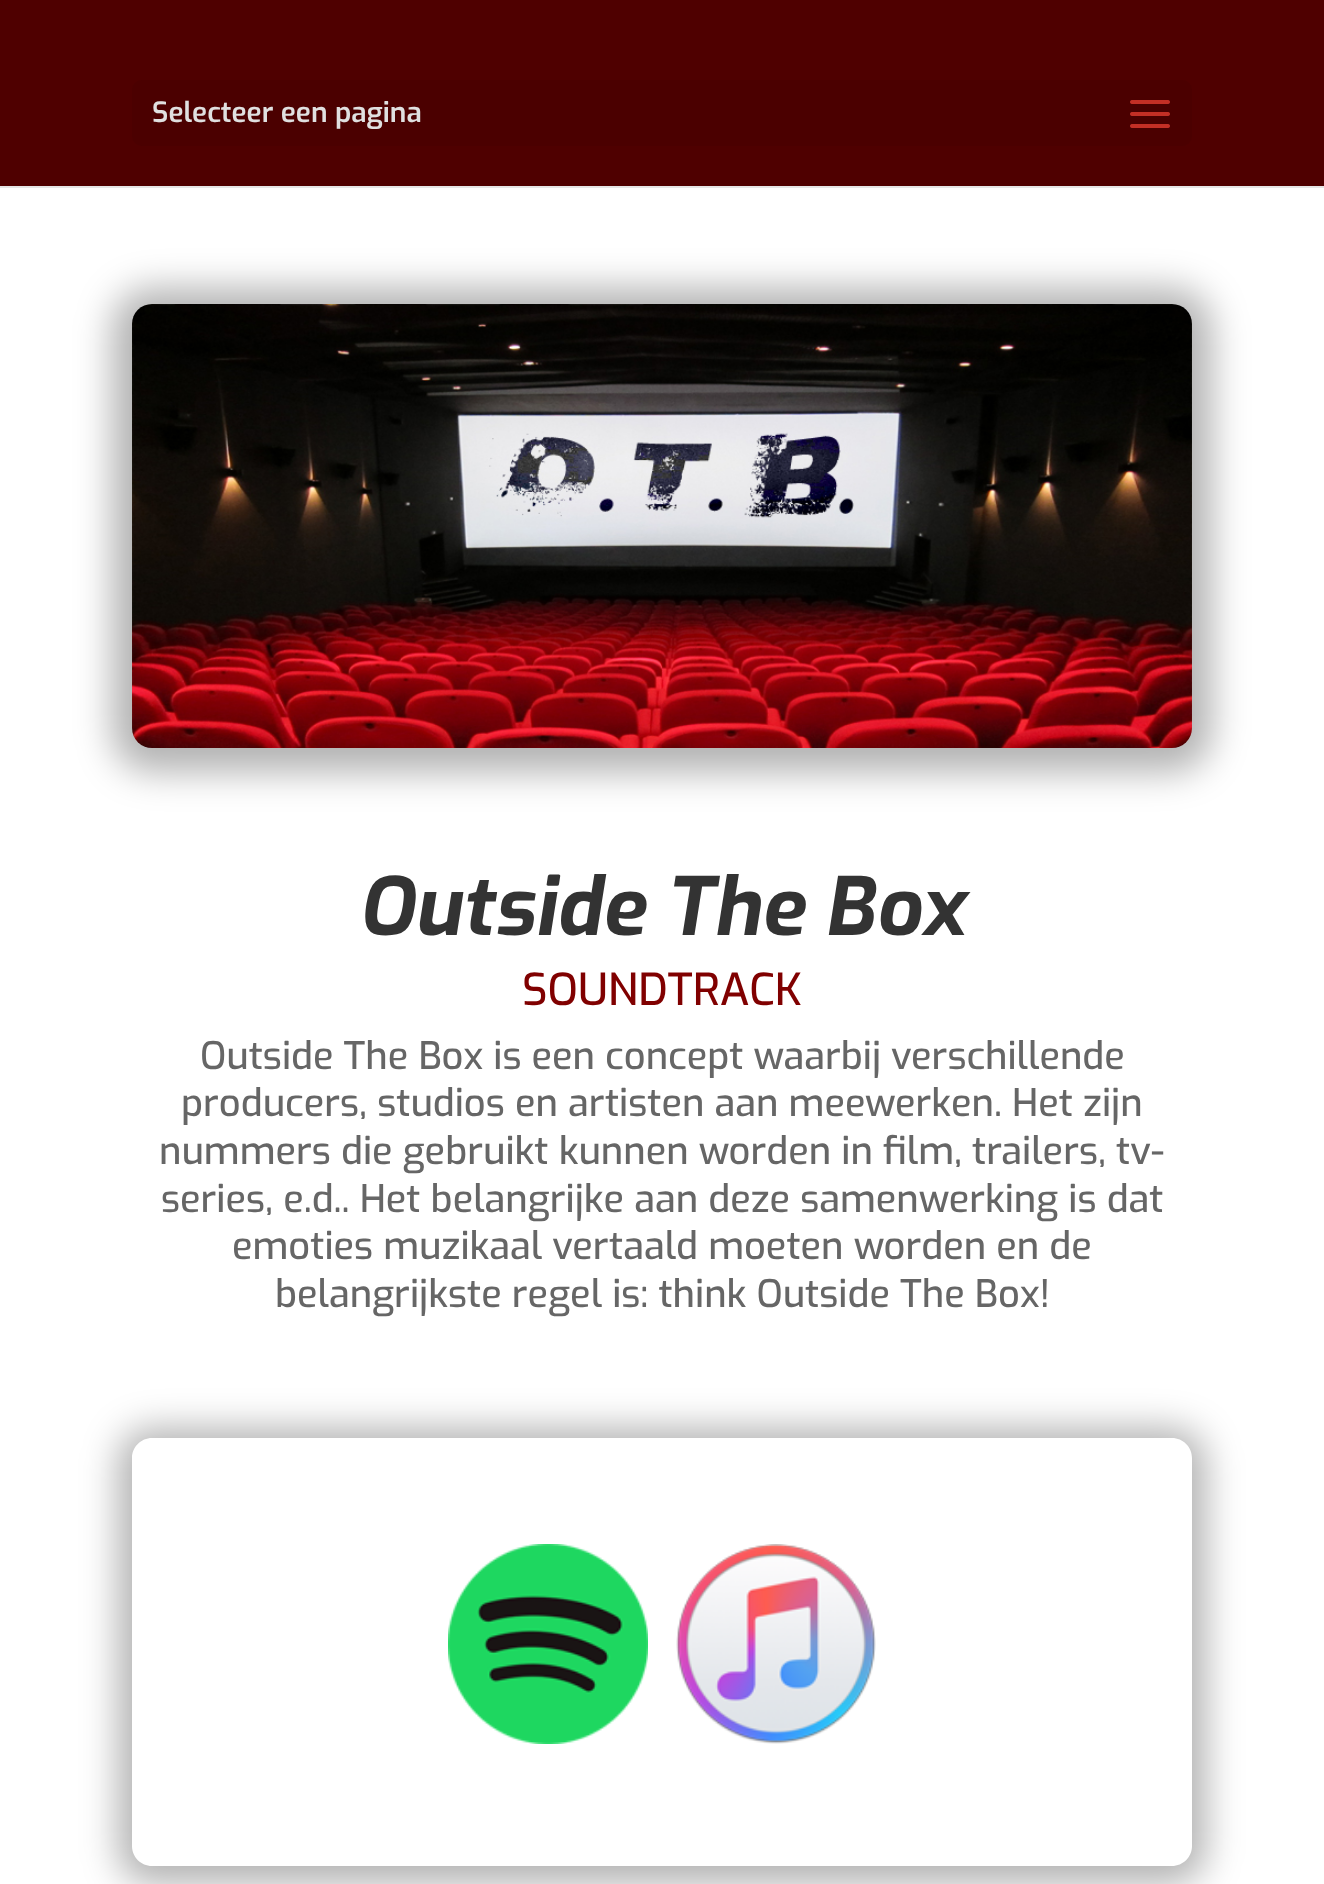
<!DOCTYPE html>
<meta charset="utf-8">
<style>body { margin: 0 } canvas { display: block }</style>
<canvas id="canvas" width="1324" height="1884"></canvas>
<script type="module">
  const canvas = document.getElementById("canvas");
  const ctx = canvas.getContext("2d");
  ctx.miterLimit = 4;
  ctx.fontKerning = "normal";
  async function loadImage(src) {
    const img = new Image();
    img.src = src;
    await img.decode();
    return img;
  }

  ctx.fillStyle = "#ffffff";
  ctx.fillRect(0, 0, 1324, 1884);
  ctx.fillStyle = "#e6e6e6";
  ctx.fillRect(0, 186, 1324, 2);
  ctx.fillStyle = "#4f0000";
  ctx.fillRect(0, 0, 1324, 186);
  ctx.fillStyle = "#4b0000";
  ctx.beginPath();
  ctx.roundRect(132, 80, 1060, 66, 10);
  ctx.fill();
  ctx.font = "600 28px Exo";
  ctx.fillStyle = "#e0e0e0";
  ctx.fillText("Selecteer een pagina", 152, 122);
  ctx.drawImage(await loadImage("img1.png"), 1130, 100, 40, 28);
  ctx.fillStyle = "rgba(0, 0, 0, 0.3)";
  ctx.filter = "blur(18px)";
  ctx.beginPath();
  ctx.roundRect(112, 288, 1100, 484, 40);
  ctx.fill();
  ctx.filter = "none";
  ctx.drawImage(await loadImage("img2.png"), 132, 304, 1060, 444);
  ctx.font = "italic bold 80px Exo";
  ctx.fillStyle = "#333333";
  ctx.fillText("Outside The Box", 358, 935);
  ctx.font = "500 44px Exo";
  ctx.fillStyle = "#800000";
  ctx.fillText("SOUNDTRACK", 522, 1005);
  ctx.font = "500 38px Exo";
  ctx.fillStyle = "#666666";
  ctx.fillText("Outside The Box is een concept waarbij verschillende", 200, 1069);
  ctx.fillText("producers, studios en artisten aan meewerken. Het zijn", 181, 1116);
  ctx.fillText("nummers die gebruikt kunnen worden in film, trailers, tv-", 159, 1164);
  ctx.fillText("series, e.d.. Het belangrijke aan deze samenwerking is dat", 161, 1212);
  ctx.fillText("emoties muzikaal vertaald moeten worden en de", 232, 1259);
  ctx.fillText("belangrijkste regel is: think Outside The Box!", 275, 1307);
  ctx.save();
  ctx.beginPath();
  ctx.moveTo(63, 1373);
  ctx.lineTo(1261, 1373);
  ctx.lineTo(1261, 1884);
  ctx.lineTo(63, 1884);
  ctx.closePath();
  ctx.moveTo(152, 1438);
  ctx.lineTo(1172, 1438);
  ctx.bezierCurveTo(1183, 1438, 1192, 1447, 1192, 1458);
  ctx.lineTo(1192, 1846);
  ctx.bezierCurveTo(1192, 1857, 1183, 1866, 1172, 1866);
  ctx.lineTo(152, 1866);
  ctx.bezierCurveTo(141, 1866, 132, 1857, 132, 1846);
  ctx.lineTo(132, 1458);
  ctx.bezierCurveTo(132, 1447, 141, 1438, 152, 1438);
  ctx.closePath();
  ctx.clip("evenodd");
  ctx.fillStyle = "rgba(0, 0, 0, 0.3)";
  ctx.filter = "blur(18px)";
  ctx.beginPath();
  ctx.roundRect(118, 1428, 1088, 456, 34);
  ctx.fill();
  ctx.filter = "none";
  ctx.restore();
  ctx.drawImage(await loadImage("img3.png"), 448, 1544, 200, 200);
  ctx.drawImage(await loadImage("img4.png"), 676, 1544, 200, 200);
</script>
